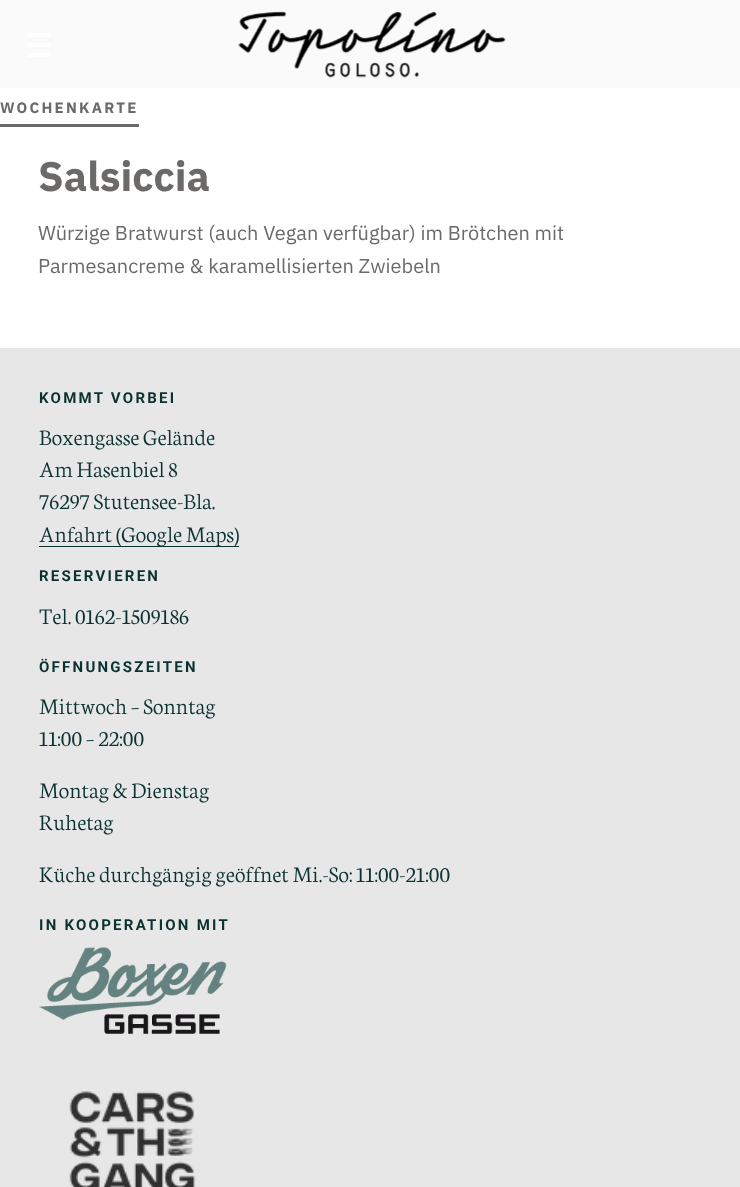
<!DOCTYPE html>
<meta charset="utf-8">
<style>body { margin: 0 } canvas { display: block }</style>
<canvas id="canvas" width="740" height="1187"></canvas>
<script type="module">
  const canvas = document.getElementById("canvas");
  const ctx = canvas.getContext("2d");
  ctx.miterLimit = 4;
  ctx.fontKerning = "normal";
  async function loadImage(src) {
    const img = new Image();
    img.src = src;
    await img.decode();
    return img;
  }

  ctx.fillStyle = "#fafafa";
  ctx.fillRect(0, 0, 740, 1187);
  ctx.fillStyle = "#ffffff";
  ctx.fillRect(28, 33, 23, 4);
  ctx.fillRect(28, 43, 23, 4);
  ctx.fillRect(28, 53, 23, 4);
  ctx.drawImage(await loadImage("img1.png"), 238, 11, 268, 67);
  ctx.fillRect(0, 88, 740, 260);
  ctx.letterSpacing = "2.25px";
  ctx.font = "bold 15px IBM Plex Sans";
  ctx.fillStyle = "#6c6a69";
  ctx.fillText("WOCHENKARTE", 0, 113);
  ctx.fillRect(0, 124, 139, 3);
  ctx.letterSpacing = "0px";
  ctx.font = "bold 41.25px IBM Plex Sans";
  ctx.fillText("Salsiccia", 38, 191);
  ctx.font = "20px IBM Plex Sans";
  ctx.fillText("Würzige Bratwurst (auch Vegan verfügbar) im Brötchen mit", 38, 240);
  ctx.fillText("Parmesancreme & karamellisierten Zwiebeln", 38, 273);
  ctx.fillStyle = "#e8e7e7";
  ctx.fillRect(0, 348, 740, 839);
  ctx.letterSpacing = "2.25px";
  ctx.font = "bold 15px Roboto";
  ctx.fillStyle = "#0a3231";
  ctx.fillText("KOMMT VORBEI", 39, 403);
  ctx.letterSpacing = "0px";
  ctx.font = "300 23.75px Neuton";
  ctx.fillText("Boxengasse Gelände", 39, 445);
  ctx.fillText("Am Hasenbiel 8", 39, 477);
  ctx.fillText("76297 Stutensee-Bla.", 39, 509);
  ctx.fillRect(39, 546, 200, 1);
  ctx.fillText("Anfahrt (Google Maps)", 39, 542);
  ctx.letterSpacing = "2.25px";
  ctx.font = "bold 15px Roboto";
  ctx.fillText("RESERVIEREN", 39, 581);
  ctx.letterSpacing = "0px";
  ctx.font = "300 23.75px Neuton";
  ctx.fillText("Tel. 0162-1509186", 39, 624);
  ctx.letterSpacing = "2.25px";
  ctx.font = "bold 15px Roboto";
  ctx.fillText("ÖFFNUNGSZEITEN", 39, 672);
  ctx.letterSpacing = "0px";
  ctx.font = "300 23.75px Neuton";
  ctx.fillText("Mittwoch – Sonntag", 39, 714);
  ctx.fillText("11:00 – 22:00", 39, 746);
  ctx.fillText("Montag & Dienstag", 39, 798);
  ctx.fillText("Ruhetag", 39, 830);
  ctx.fillText("Küche durchgängig geöffnet Mi.-So: 11:00-21:00", 39, 882);
  ctx.letterSpacing = "2.25px";
  ctx.font = "bold 15px Roboto";
  ctx.fillText("IN KOOPERATION MIT", 39, 930);
  ctx.drawImage(await loadImage("img2.png"), 39, 947, 188, 87);
  ctx.drawImage(await loadImage("img3.png"), 69, 1091, 127, 96);
</script>
